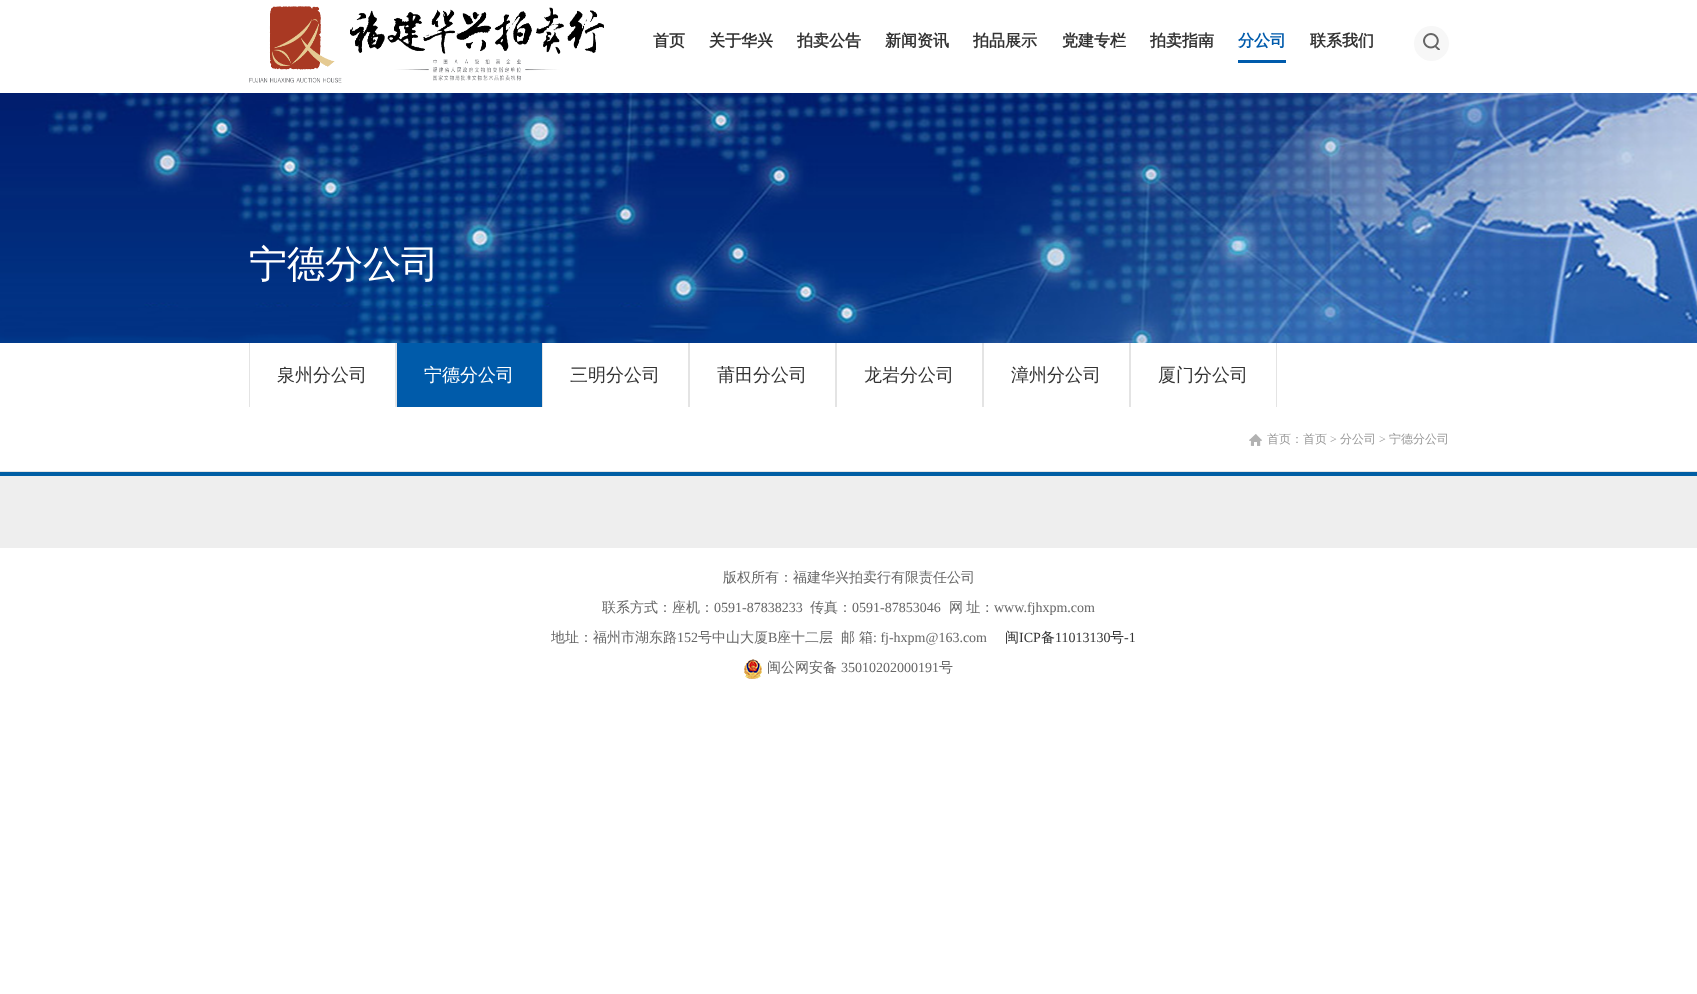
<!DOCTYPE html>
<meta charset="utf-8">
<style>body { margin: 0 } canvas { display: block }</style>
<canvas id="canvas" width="1697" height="994"></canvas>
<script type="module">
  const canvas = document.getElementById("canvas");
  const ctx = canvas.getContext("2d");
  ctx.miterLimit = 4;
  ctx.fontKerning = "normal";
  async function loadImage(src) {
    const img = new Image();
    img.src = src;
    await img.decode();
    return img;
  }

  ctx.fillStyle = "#ffffff";
  ctx.fillRect(0, 0, 1697, 994);
  ctx.drawImage(await loadImage("img1.png"), 249, 6, 355, 77);
  ctx.font = "bold 16px WenQuanYi Zen Hei";
  ctx.fillStyle = "#333333";
  ctx.fillText("首页", 653, 46);
  ctx.fillText("关于华兴", 709, 46);
  ctx.fillText("拍卖公告", 797, 46);
  ctx.fillText("新闻资讯", 885, 46);
  ctx.fillText("拍品展示", 973, 46);
  ctx.fillText("党建专栏", 1062, 46);
  ctx.fillText("拍卖指南", 1150, 46);
  ctx.fillStyle = "#005bac";
  ctx.fillRect(1238, 60, 48, 3);
  ctx.fillText("分公司", 1238, 46);
  ctx.fillStyle = "#333333";
  ctx.fillText("联系我们", 1310, 46);
  ctx.fillStyle = "#f7f7f7";
  ctx.beginPath();
  ctx.arc(1431.5, 43.5, 17.5, 0, Math.PI * 2);
  ctx.fill();
  ctx.drawImage(await loadImage("img2.png"), 1423, 33, 17, 17);
  ctx.drawImage(await loadImage("img3.png"), 0, 93, 1697, 250);
  ctx.font = "500 38px WenQuanYi Zen Hei";
  ctx.fillStyle = "#ffffff";
  ctx.fillText("宁德分公司", 249, 277);
  ctx.fillStyle = "#e4e4e4";
  ctx.fillRect(0, 471, 1697, 1);
  ctx.fillRect(395, 343, 2, 64);
  ctx.fillRect(249, 343, 1, 64);
  ctx.font = "500 18px WenQuanYi Zen Hei";
  ctx.fillStyle = "#333333";
  ctx.fillText("泉州分公司", 277, 381);
  ctx.fillStyle = "#005baa";
  ctx.fillRect(397, 343, 145, 64);
  ctx.fillStyle = "#ffffff";
  ctx.fillText("宁德分公司", 424, 381);
  ctx.fillStyle = "#e4e4e4";
  ctx.fillRect(688, 343, 2, 64);
  ctx.fillRect(542, 343, 1, 64);
  ctx.fillStyle = "#333333";
  ctx.fillText("三明分公司", 570, 381);
  ctx.fillStyle = "#e4e4e4";
  ctx.fillRect(835, 343, 2, 64);
  ctx.fillStyle = "#333333";
  ctx.fillText("莆田分公司", 717, 381);
  ctx.fillStyle = "#e4e4e4";
  ctx.fillRect(982, 343, 2, 64);
  ctx.fillStyle = "#333333";
  ctx.fillText("龙岩分公司", 864, 381);
  ctx.fillStyle = "#e4e4e4";
  ctx.fillRect(1129, 343, 2, 64);
  ctx.fillStyle = "#333333";
  ctx.fillText("漳州分公司", 1011, 381);
  ctx.fillStyle = "#e4e4e4";
  ctx.fillRect(1276, 343, 1, 64);
  ctx.fillStyle = "#333333";
  ctx.fillText("厦门分公司", 1158, 381);
  ctx.drawImage(await loadImage("img4.png"), 1249, 434, 13, 12);
  ctx.font = "500 12px WenQuanYi Zen Hei";
  ctx.fillStyle = "#999999";
  ctx.fillText("首页：首页", 1267, 443);
  ctx.font = "12px Liberation Serif";
  ctx.fillText(">", 1330, 443);
  ctx.font = "500 12px WenQuanYi Zen Hei";
  ctx.fillText("分公司", 1340, 443);
  ctx.font = "12px Liberation Serif";
  ctx.fillText(">", 1379, 443);
  ctx.font = "500 12px WenQuanYi Zen Hei";
  ctx.fillText("宁德分公司", 1389, 443);
  ctx.fillStyle = "#005ea4";
  ctx.fillRect(0, 472, 1697, 4);
  ctx.fillStyle = "#eeeeee";
  ctx.fillRect(0, 476, 1697, 72);
  ctx.font = "500 14px WenQuanYi Zen Hei";
  ctx.fillStyle = "#666666";
  ctx.fillText("版权所有：福建华兴拍卖行有限责任公司", 723, 582);
  ctx.fillText("联系方式：座机：", 602, 612);
  ctx.font = "14px Liberation Serif";
  ctx.fillText("0591-87838233", 714, 612);
  ctx.font = "500 14px WenQuanYi Zen Hei";
  ctx.fillText("传真：", 810, 612);
  ctx.font = "14px Liberation Serif";
  ctx.fillText("0591-87853046", 852, 612);
  ctx.wordSpacing = "-1px";
  ctx.font = "500 14px WenQuanYi Zen Hei";
  ctx.fillText("网 址：", 949, 612);
  ctx.wordSpacing = "0px";
  ctx.font = "14px Liberation Serif";
  ctx.fillText("www.fjhxpm.com", 994, 612);
  ctx.font = "500 14px WenQuanYi Zen Hei";
  ctx.fillText("地址：福州市湖东路", 551, 642);
  ctx.font = "14px Liberation Serif";
  ctx.fillText("152", 677, 642);
  ctx.font = "500 14px WenQuanYi Zen Hei";
  ctx.fillText("号中山大厦", 698, 642);
  ctx.font = "14px Liberation Serif";
  ctx.fillText("B", 768, 642);
  ctx.font = "500 14px WenQuanYi Zen Hei";
  ctx.fillText("座十二层", 777, 642);
  ctx.fillText("邮", 841, 642);
  ctx.fillText("箱", 859, 642);
  ctx.font = "14px Liberation Serif";
  ctx.fillText(": fj-hxpm@163.com", 873, 642);
  ctx.font = "500 14px WenQuanYi Zen Hei";
  ctx.fillStyle = "#333333";
  ctx.fillText("闽", 1005, 642);
  ctx.font = "14px Liberation Serif";
  ctx.fillText("ICP", 1019, 642);
  ctx.font = "500 14px WenQuanYi Zen Hei";
  ctx.fillText("备", 1041, 642);
  ctx.font = "14px Liberation Serif";
  ctx.fillText("11013130", 1055, 642);
  ctx.font = "500 14px WenQuanYi Zen Hei";
  ctx.fillText("号", 1110, 642);
  ctx.font = "14px Liberation Serif";
  ctx.fillText("-1", 1124, 642);
  ctx.drawImage(await loadImage("img5.png"), 744, 659, 18, 20);
  ctx.font = "500 14px WenQuanYi Zen Hei";
  ctx.fillStyle = "#666666";
  ctx.fillText("闽公网安备", 767, 672);
  ctx.font = "14px Liberation Serif";
  ctx.fillText("35010202000191", 841, 672);
  ctx.font = "500 14px WenQuanYi Zen Hei";
  ctx.fillText("号", 939, 672);
</script>
